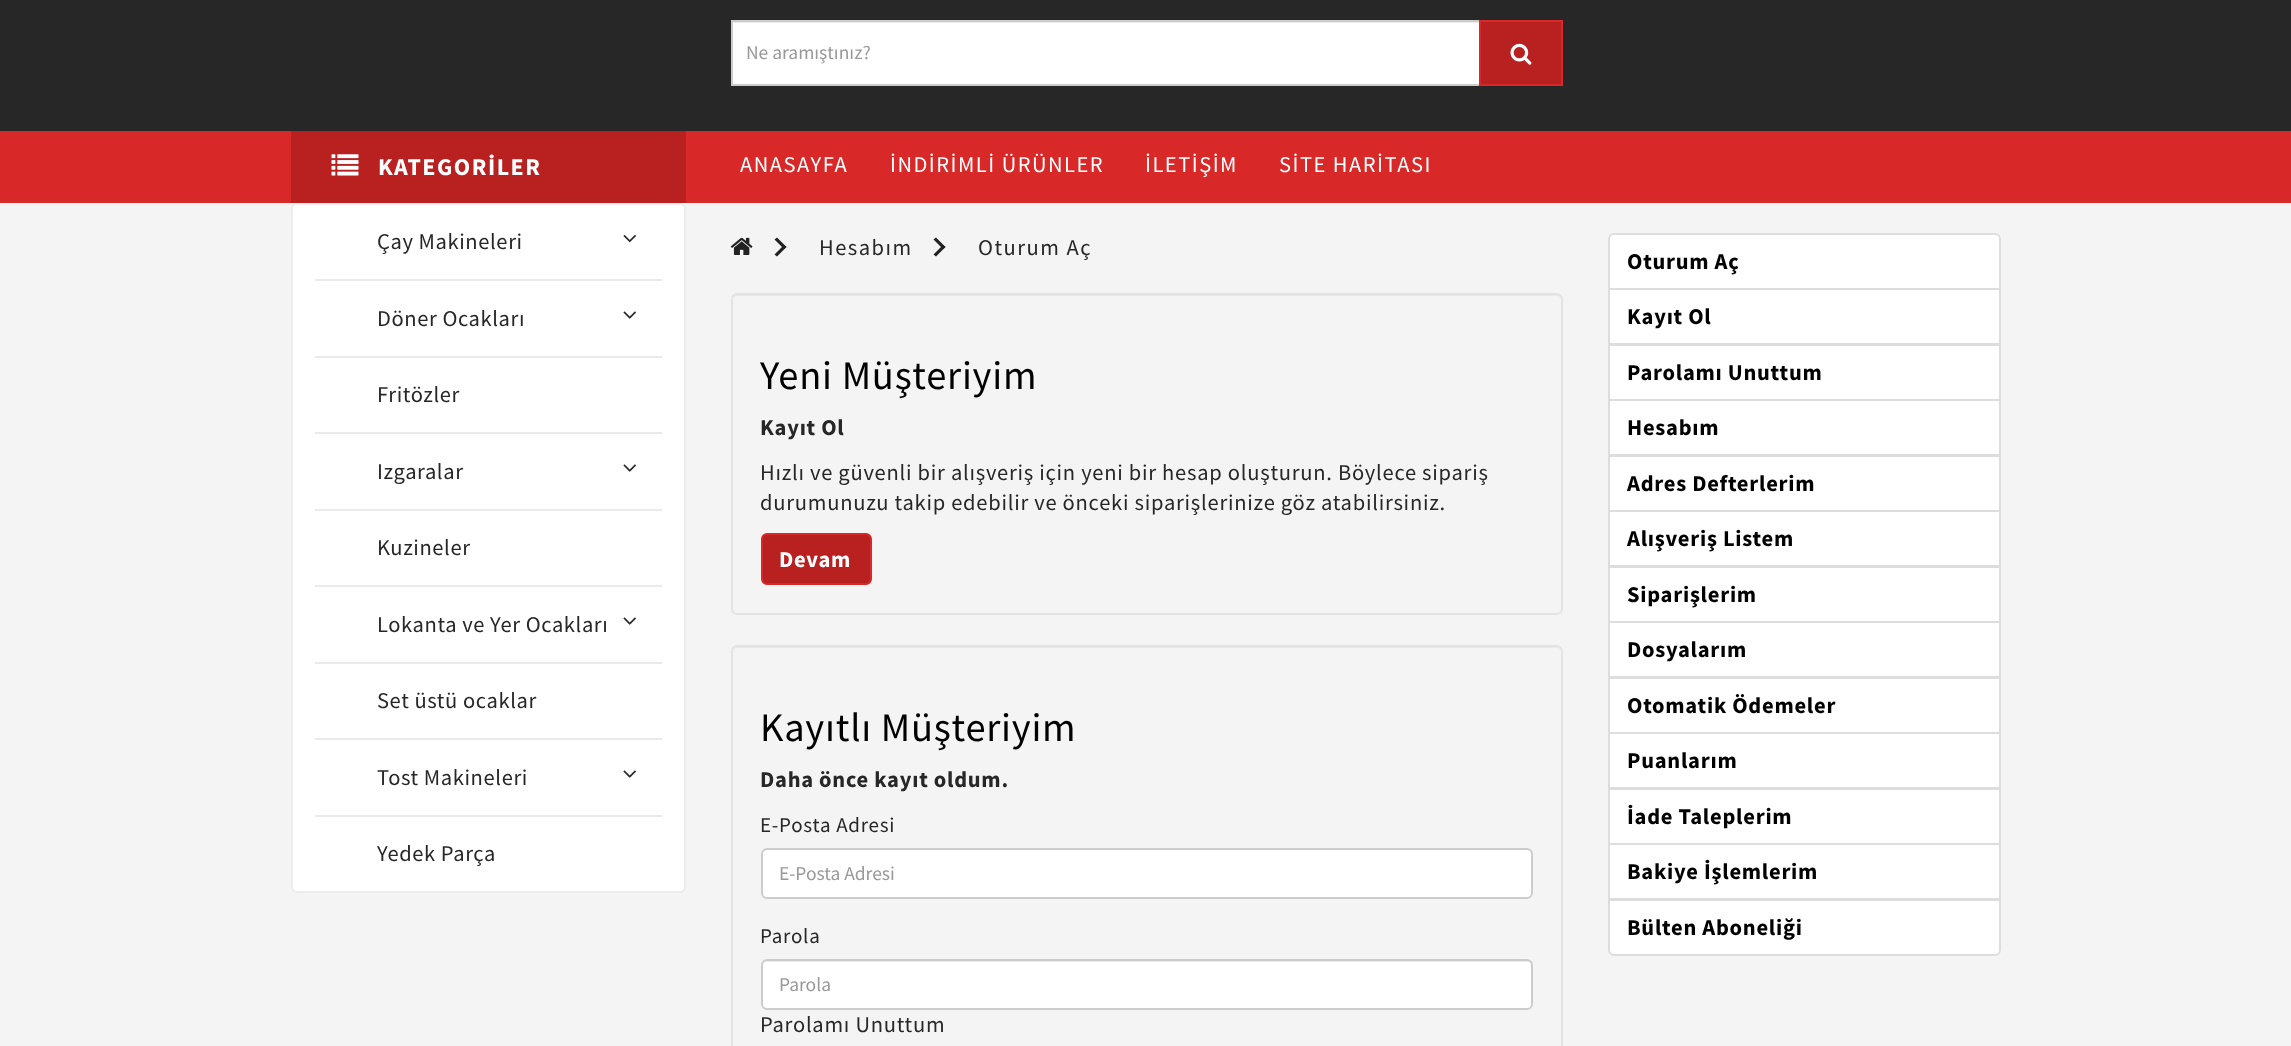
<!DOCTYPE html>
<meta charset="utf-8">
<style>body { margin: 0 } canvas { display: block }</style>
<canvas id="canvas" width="2291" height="1046"></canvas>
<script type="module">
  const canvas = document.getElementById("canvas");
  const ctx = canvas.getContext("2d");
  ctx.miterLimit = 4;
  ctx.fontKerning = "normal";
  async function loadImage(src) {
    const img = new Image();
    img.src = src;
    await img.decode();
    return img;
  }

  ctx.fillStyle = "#f4f4f4";
  ctx.fillRect(0, 0, 2291, 1046);
  ctx.fillStyle = "#272727";
  ctx.fillRect(0, 0, 2291, 131);
  ctx.fillStyle = "#ffffff";
  ctx.fillRect(733, 23, 746, 61);
  ctx.fillStyle = "#ececec";
  ctx.fillRect(732, 22, 747, 1);
  ctx.strokeStyle = "#cccccc";
  ctx.lineWidth = 2;
  ctx.strokeRect(732, 21, 748, 64);
  ctx.font = "19.5px Source Sans Pro";
  ctx.fillStyle = "#999999";
  ctx.fillText("Ne aramıştınız?", 746, 59);
  ctx.fillStyle = "#b92121";
  ctx.beginPath();
  ctx.rect(1480, 21, 82, 64);
  ctx.fill();
  ctx.strokeStyle = "#d82828";
  ctx.stroke();
  ctx.drawImage(await loadImage("img1.png"), 1510, 43, 22, 22);
  ctx.fillStyle = "#d82828";
  ctx.fillRect(0, 131, 2291, 72);
  ctx.fillStyle = "#b92121";
  ctx.fillRect(291, 131, 395, 72);
  ctx.drawImage(await loadImage("img2.png"), 331, 154, 28, 22);
  ctx.letterSpacing = "1.5px";
  ctx.font = "bold 24px Source Sans Pro";
  ctx.fillStyle = "#ffffff";
  ctx.fillText("KATEGORİLER", 378, 175);
  ctx.font = "22.5px Source Sans Pro";
  ctx.fillText("ANASAYFA", 740, 172);
  ctx.fillText("İNDİRİMLİ ÜRÜNLER", 890, 172);
  ctx.fillText("İLETİŞİM", 1145, 172);
  ctx.fillText("SİTE HARİTASI", 1279, 172);
  ctx.beginPath();
  ctx.roundRect(292, 204, 393, 688, 5);
  ctx.fill();
  ctx.strokeStyle = "#ededed";
  ctx.stroke();
  ctx.fillStyle = "#eaeaea";
  ctx.fillRect(315, 279, 347, 2);
  ctx.letterSpacing = "0.6px";
  ctx.fillStyle = "#272727";
  ctx.fillText("Çay Makineleri", 377, 249);
  ctx.drawImage(await loadImage("img3.png"), 623, 235, 13, 8);
  ctx.fillStyle = "#eaeaea";
  ctx.fillRect(315, 356, 347, 2);
  ctx.fillStyle = "#272727";
  ctx.fillText("Döner Ocakları", 377, 326);
  ctx.drawImage(await loadImage("img4.png"), 623, 311, 13, 8);
  ctx.fillStyle = "#eaeaea";
  ctx.fillRect(315, 432, 347, 2);
  ctx.fillStyle = "#272727";
  ctx.fillText("Fritözler", 377, 402);
  ctx.fillStyle = "#eaeaea";
  ctx.fillRect(315, 509, 347, 2);
  ctx.fillStyle = "#272727";
  ctx.fillText("Izgaralar", 377, 479);
  ctx.drawImage(await loadImage("img4.png"), 623, 464, 13, 8);
  ctx.fillStyle = "#eaeaea";
  ctx.fillRect(315, 585, 347, 2);
  ctx.fillStyle = "#272727";
  ctx.fillText("Kuzineler", 377, 555);
  ctx.fillStyle = "#eaeaea";
  ctx.fillRect(315, 662, 347, 2);
  ctx.fillStyle = "#272727";
  ctx.fillText("Lokanta ve Yer Ocakları", 377, 632);
  ctx.drawImage(await loadImage("img4.png"), 623, 617, 13, 8);
  ctx.fillStyle = "#eaeaea";
  ctx.fillRect(315, 738, 347, 2);
  ctx.fillStyle = "#272727";
  ctx.fillText("Set üstü ocaklar", 377, 708);
  ctx.fillStyle = "#eaeaea";
  ctx.fillRect(315, 815, 347, 2);
  ctx.fillStyle = "#272727";
  ctx.fillText("Tost Makineleri", 377, 785);
  ctx.drawImage(await loadImage("img4.png"), 623, 770, 13, 8);
  ctx.fillText("Yedek Parça", 377, 861);
  ctx.drawImage(await loadImage("img5.png"), 730, 237, 23, 18);
  ctx.fillStyle = "#222222";
  ctx.beginPath();
  ctx.moveTo(774.5, 239.5);
  ctx.lineTo(777, 237.5);
  ctx.lineTo(786.5, 247);
  ctx.lineTo(784, 249);
  ctx.closePath();
  ctx.fill();
  ctx.beginPath();
  ctx.moveTo(774.5, 254.5);
  ctx.lineTo(784, 245);
  ctx.lineTo(786.5, 247);
  ctx.lineTo(777, 256.5);
  ctx.closePath();
  ctx.fill();
  ctx.letterSpacing = "1.5px";
  ctx.fillStyle = "#272727";
  ctx.fillText("Hesabım", 819, 255);
  ctx.fillStyle = "#222222";
  ctx.beginPath();
  ctx.moveTo(933.5, 239.5);
  ctx.lineTo(936, 237.5);
  ctx.lineTo(945.5, 247);
  ctx.lineTo(943, 249);
  ctx.closePath();
  ctx.fill();
  ctx.beginPath();
  ctx.moveTo(933.5, 254.5);
  ctx.lineTo(943, 245);
  ctx.lineTo(945.5, 247);
  ctx.lineTo(936, 256.5);
  ctx.closePath();
  ctx.fill();
  ctx.fillStyle = "#272727";
  ctx.fillText("Oturum Aç", 978, 255);
  ctx.fillStyle = "#e8e8e8";
  ctx.beginPath();
  ctx.moveTo(736, 296);
  ctx.lineTo(1557, 296);
  ctx.bezierCurveTo(1559, 296, 1562, 298, 1562, 300);
  ctx.lineTo(1562, 299);
  ctx.bezierCurveTo(1562, 296, 1560, 294, 1557, 294);
  ctx.lineTo(737, 294);
  ctx.bezierCurveTo(734, 294, 732, 296, 732, 299);
  ctx.lineTo(732, 300);
  ctx.bezierCurveTo(732, 298, 734, 296, 736, 296);
  ctx.closePath();
  ctx.fill();
  ctx.beginPath();
  ctx.roundRect(732, 294, 830, 320, 5);
  ctx.strokeStyle = "#e3e3e3";
  ctx.stroke();
  ctx.letterSpacing = "0.75px";
  ctx.font = "40.5px Source Sans Pro";
  ctx.fillStyle = "#000000";
  ctx.fillText("Yeni Müşteriyim", 760, 389);
  ctx.font = "bold 22.5px Source Sans Pro";
  ctx.fillStyle = "#272727";
  ctx.fillText("Kayıt Ol", 760, 435);
  ctx.font = "22.5px Source Sans Pro";
  ctx.fillText("Hızlı ve güvenli bir alışveriş için yeni bir hesap oluşturun. Böylece sipariş", 760, 480);
  ctx.fillText("durumunuzu takip edebilir ve önceki siparişlerinize göz atabilirsiniz.", 760, 510);
  ctx.fillStyle = "#b92121";
  ctx.beginPath();
  ctx.roundRect(762, 534, 109, 50, 5);
  ctx.fill();
  ctx.strokeStyle = "#d82828";
  ctx.stroke();
  ctx.font = "bold 22.5px Source Sans Pro";
  ctx.fillStyle = "#ffffff";
  ctx.fillText("Devam", 779, 567);
  ctx.fillStyle = "#e8e8e8";
  ctx.beginPath();
  ctx.moveTo(736, 648);
  ctx.lineTo(1557, 648);
  ctx.bezierCurveTo(1559, 648, 1562, 650, 1562, 652);
  ctx.bezierCurveTo(1562, 649, 1560, 647, 1557, 647);
  ctx.lineTo(737, 647);
  ctx.bezierCurveTo(734, 647, 732, 649, 732, 652);
  ctx.bezierCurveTo(732, 650, 734, 648, 736, 648);
  ctx.closePath();
  ctx.fill();
  ctx.beginPath();
  ctx.roundRect(732, 646, 830, 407, 5);
  ctx.strokeStyle = "#e3e3e3";
  ctx.stroke();
  ctx.font = "40.5px Source Sans Pro";
  ctx.fillStyle = "#000000";
  ctx.fillText("Kayıtlı Müşteriyim", 760, 741);
  ctx.font = "bold 22.5px Source Sans Pro";
  ctx.fillStyle = "#272727";
  ctx.fillText("Daha önce kayıt oldum.", 760, 787);
  ctx.font = "21px Source Sans Pro";
  ctx.fillText("E-Posta Adresi", 760, 832);
  ctx.fillStyle = "#ffffff";
  ctx.beginPath();
  ctx.roundRect(761, 848, 772, 51, 6);
  ctx.fill();
  ctx.fillStyle = "#ececec";
  ctx.beginPath();
  ctx.moveTo(766, 850);
  ctx.lineTo(1527, 850);
  ctx.bezierCurveTo(1529, 850, 1532, 853, 1532, 855);
  ctx.bezierCurveTo(1532, 852, 1530, 849, 1527, 849);
  ctx.lineTo(767, 849);
  ctx.bezierCurveTo(765, 849, 763, 850, 762, 852);
  ctx.lineTo(762, 855);
  ctx.bezierCurveTo(762, 853, 764, 850, 766, 850);
  ctx.closePath();
  ctx.fill();
  ctx.beginPath();
  ctx.roundRect(762, 849, 770, 49, 5);
  ctx.strokeStyle = "#cccccc";
  ctx.stroke();
  ctx.letterSpacing = "0px";
  ctx.font = "19.5px Source Sans Pro";
  ctx.fillStyle = "#999999";
  ctx.fillText("E-Posta Adresi", 779, 880);
  ctx.letterSpacing = "0.75px";
  ctx.font = "21px Source Sans Pro";
  ctx.fillStyle = "#272727";
  ctx.fillText("Parola", 760, 943);
  ctx.fillStyle = "#ffffff";
  ctx.beginPath();
  ctx.roundRect(761, 959, 772, 51, 6);
  ctx.fill();
  ctx.fillStyle = "#ececec";
  ctx.beginPath();
  ctx.moveTo(766, 962);
  ctx.lineTo(1527, 962);
  ctx.bezierCurveTo(1529, 962, 1532, 964, 1532, 966);
  ctx.bezierCurveTo(1532, 963, 1530, 960, 1527, 960);
  ctx.lineTo(767, 960);
  ctx.bezierCurveTo(765, 960, 763, 961, 762, 963);
  ctx.lineTo(762, 966);
  ctx.bezierCurveTo(762, 964, 764, 962, 766, 962);
  ctx.closePath();
  ctx.fill();
  ctx.beginPath();
  ctx.roundRect(762, 960, 770, 49, 5);
  ctx.stroke();
  ctx.letterSpacing = "0px";
  ctx.font = "19.5px Source Sans Pro";
  ctx.fillStyle = "#999999";
  ctx.fillText("Parola", 779, 991);
  ctx.letterSpacing = "0.75px";
  ctx.font = "22.5px Source Sans Pro";
  ctx.fillStyle = "#272727";
  ctx.fillText("Parolamı Unuttum", 760, 1032);
  ctx.fillStyle = "#ffffff";
  ctx.beginPath();
  ctx.roundRect(1609, 234, 391, 55, [5, 5, 0, 0]);
  ctx.fill();
  ctx.strokeStyle = "#dddddd";
  ctx.stroke();
  ctx.font = "bold 22.5px Source Sans Pro";
  ctx.fillStyle = "#000000";
  ctx.fillText("Oturum Aç", 1627, 269);
  ctx.fillStyle = "#ffffff";
  ctx.beginPath();
  ctx.rect(1609, 289, 391, 55);
  ctx.fill();
  ctx.stroke();
  ctx.fillStyle = "#000000";
  ctx.fillText("Kayıt Ol", 1627, 324);
  ctx.fillStyle = "#ffffff";
  ctx.beginPath();
  ctx.rect(1609, 345, 391, 55);
  ctx.fill();
  ctx.stroke();
  ctx.fillStyle = "#000000";
  ctx.fillText("Parolamı Unuttum", 1627, 380);
  ctx.fillStyle = "#ffffff";
  ctx.beginPath();
  ctx.rect(1609, 400, 391, 55);
  ctx.fill();
  ctx.stroke();
  ctx.fillStyle = "#000000";
  ctx.fillText("Hesabım", 1627, 435);
  ctx.fillStyle = "#ffffff";
  ctx.beginPath();
  ctx.rect(1609, 456, 391, 55);
  ctx.fill();
  ctx.stroke();
  ctx.fillStyle = "#000000";
  ctx.fillText("Adres Defterlerim", 1627, 491);
  ctx.fillStyle = "#ffffff";
  ctx.beginPath();
  ctx.rect(1609, 511, 391, 55);
  ctx.fill();
  ctx.stroke();
  ctx.fillStyle = "#000000";
  ctx.fillText("Alışveriş Listem", 1627, 546);
  ctx.fillStyle = "#ffffff";
  ctx.beginPath();
  ctx.rect(1609, 567, 391, 55);
  ctx.fill();
  ctx.stroke();
  ctx.fillStyle = "#000000";
  ctx.fillText("Siparişlerim", 1627, 602);
  ctx.fillStyle = "#ffffff";
  ctx.beginPath();
  ctx.rect(1609, 622, 391, 55);
  ctx.fill();
  ctx.stroke();
  ctx.fillStyle = "#000000";
  ctx.fillText("Dosyalarım", 1627, 657);
  ctx.fillStyle = "#ffffff";
  ctx.beginPath();
  ctx.rect(1609, 678, 391, 55);
  ctx.fill();
  ctx.stroke();
  ctx.fillStyle = "#000000";
  ctx.fillText("Otomatik Ödemeler", 1627, 713);
  ctx.fillStyle = "#ffffff";
  ctx.beginPath();
  ctx.rect(1609, 733, 391, 55);
  ctx.fill();
  ctx.stroke();
  ctx.fillStyle = "#000000";
  ctx.fillText("Puanlarım", 1627, 768);
  ctx.fillStyle = "#ffffff";
  ctx.beginPath();
  ctx.rect(1609, 789, 391, 55);
  ctx.fill();
  ctx.stroke();
  ctx.fillStyle = "#000000";
  ctx.fillText("İade Taleplerim", 1627, 824);
  ctx.fillStyle = "#ffffff";
  ctx.beginPath();
  ctx.rect(1609, 844, 391, 55);
  ctx.fill();
  ctx.stroke();
  ctx.fillStyle = "#000000";
  ctx.fillText("Bakiye İşlemlerim", 1627, 879);
  ctx.fillStyle = "#ffffff";
  ctx.beginPath();
  ctx.roundRect(1609, 900, 391, 55, [0, 0, 5, 5]);
  ctx.fill();
  ctx.stroke();
  ctx.fillStyle = "#000000";
  ctx.fillText("Bülten Aboneliği", 1627, 935);
</script>
